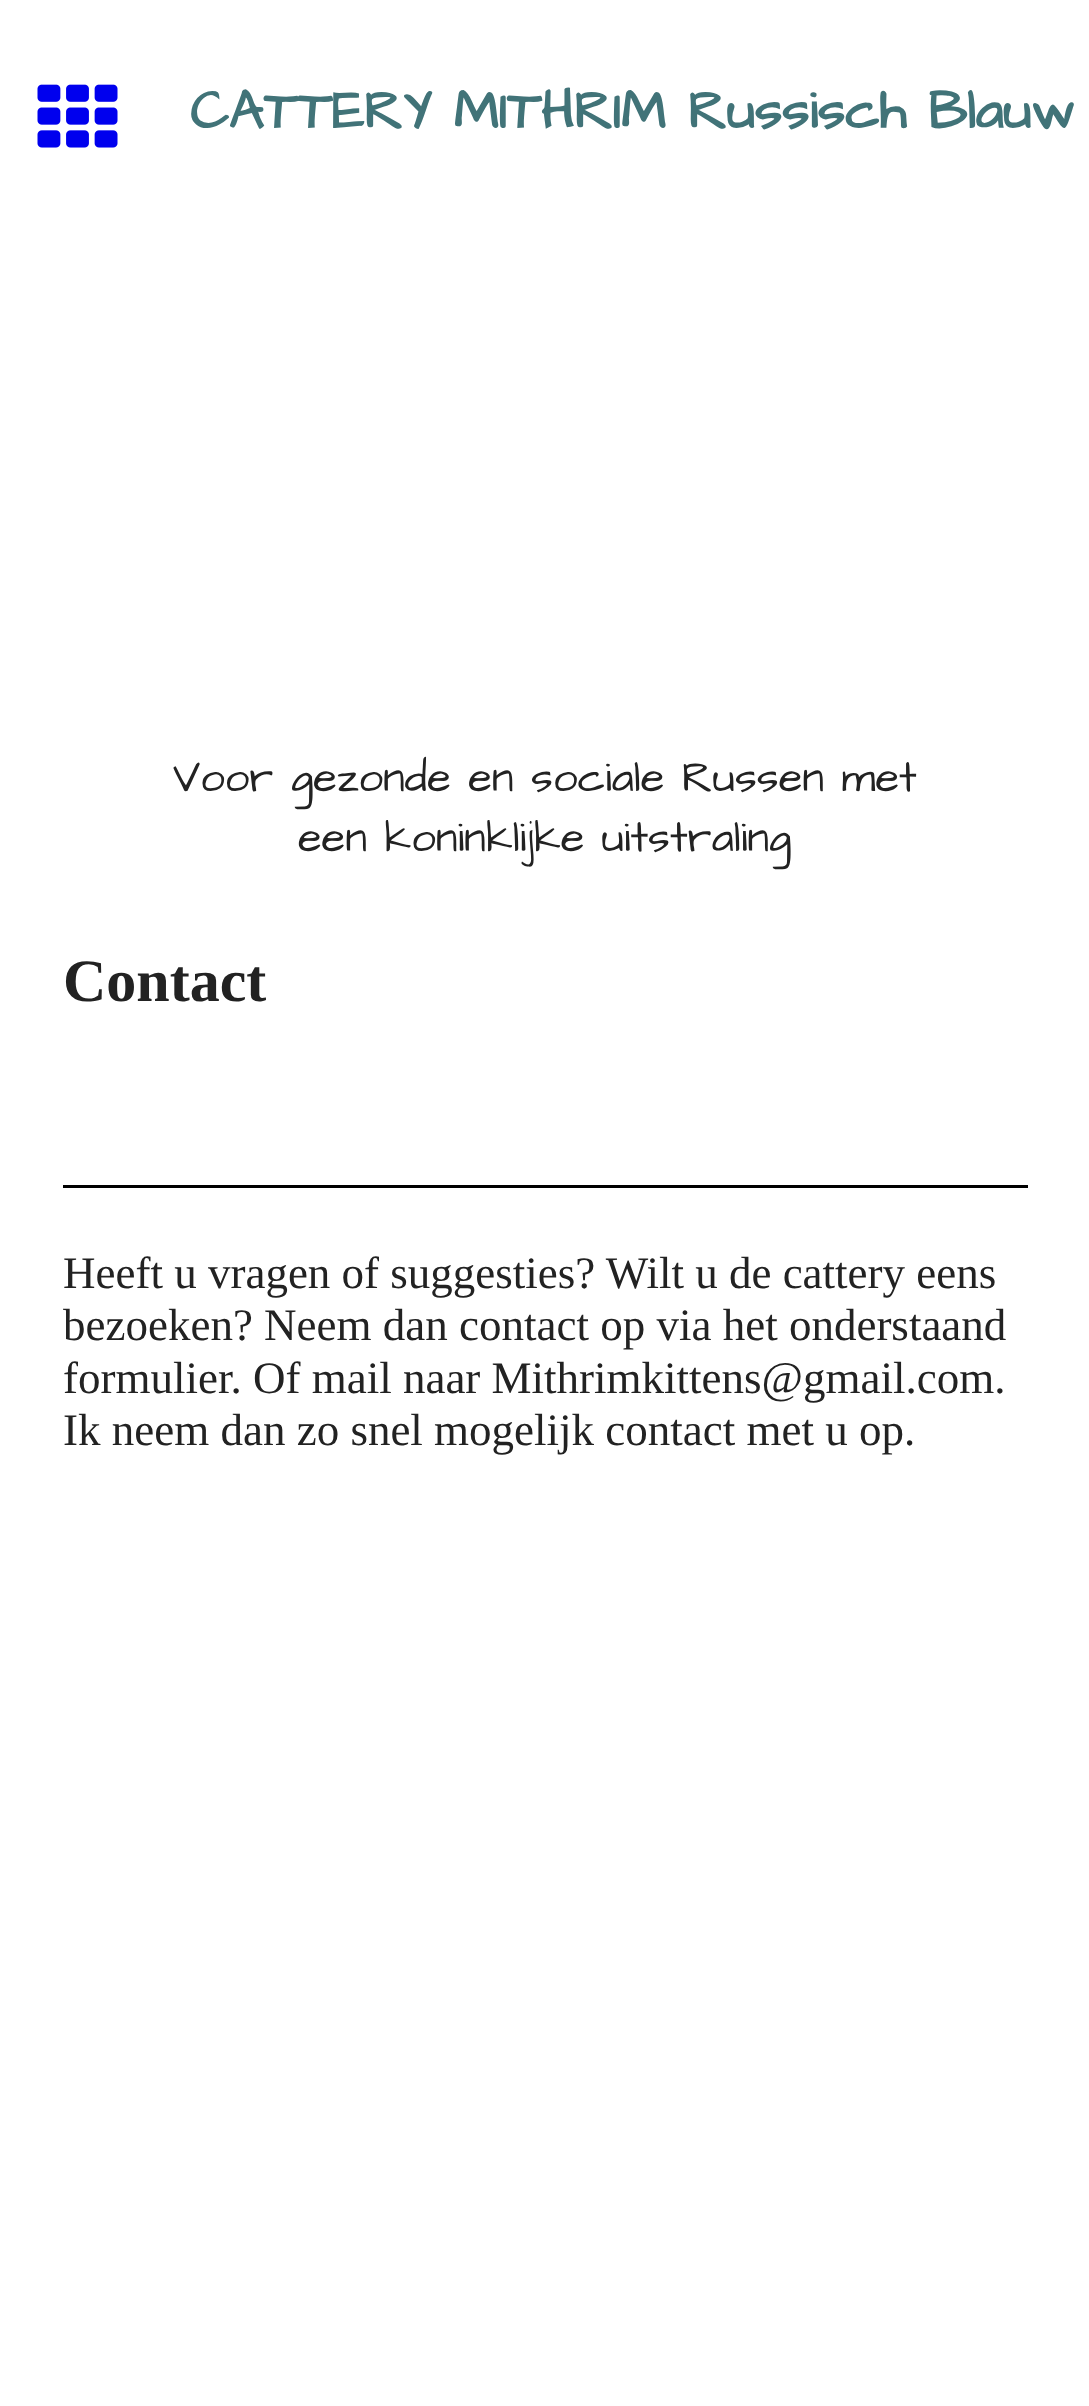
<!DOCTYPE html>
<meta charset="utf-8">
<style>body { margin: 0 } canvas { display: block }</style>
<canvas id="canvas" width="1089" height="2406"></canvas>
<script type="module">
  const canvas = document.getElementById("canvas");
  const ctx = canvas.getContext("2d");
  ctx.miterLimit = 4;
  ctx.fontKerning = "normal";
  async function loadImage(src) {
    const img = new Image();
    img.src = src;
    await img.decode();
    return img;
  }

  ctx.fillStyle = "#ffffff";
  ctx.fillRect(0, 0, 1089, 2406);
  ctx.drawImage(await loadImage("img1.png"), 37, 84, 81, 64);
  ctx.font = "bold 54.5px Architects Daughter";
  ctx.fillStyle = "#417378";
  ctx.fillText("CATTERY MITHRIM Russisch Blauw", 190, 128);
  ctx.font = "43.6px Architects Daughter";
  ctx.fillStyle = "#222222";
  ctx.fillText("Voor gezonde en sociale Russen met", 173, 791);
  ctx.fillText("een koninklijke uitstraling", 298, 851);
  ctx.font = "bold 60px Liberation Serif";
  ctx.fillText("Contact", 63, 1001);
  ctx.fillStyle = "#000000";
  ctx.fillRect(63, 1185, 965, 3);
  ctx.font = "45px Liberation Serif";
  ctx.fillStyle = "#222222";
  ctx.fillText("Heeft u vragen of suggesties? Wilt u de cattery eens", 63, 1288);
  ctx.fillText("bezoeken? Neem dan contact op via het onderstaand", 63, 1340);
  ctx.fillText("formulier. Of mail naar Mithrimkittens@gmail.com.", 63, 1393);
  ctx.fillText("Ik neem dan zo snel mogelijk contact met u op.", 63, 1445);
</script>
